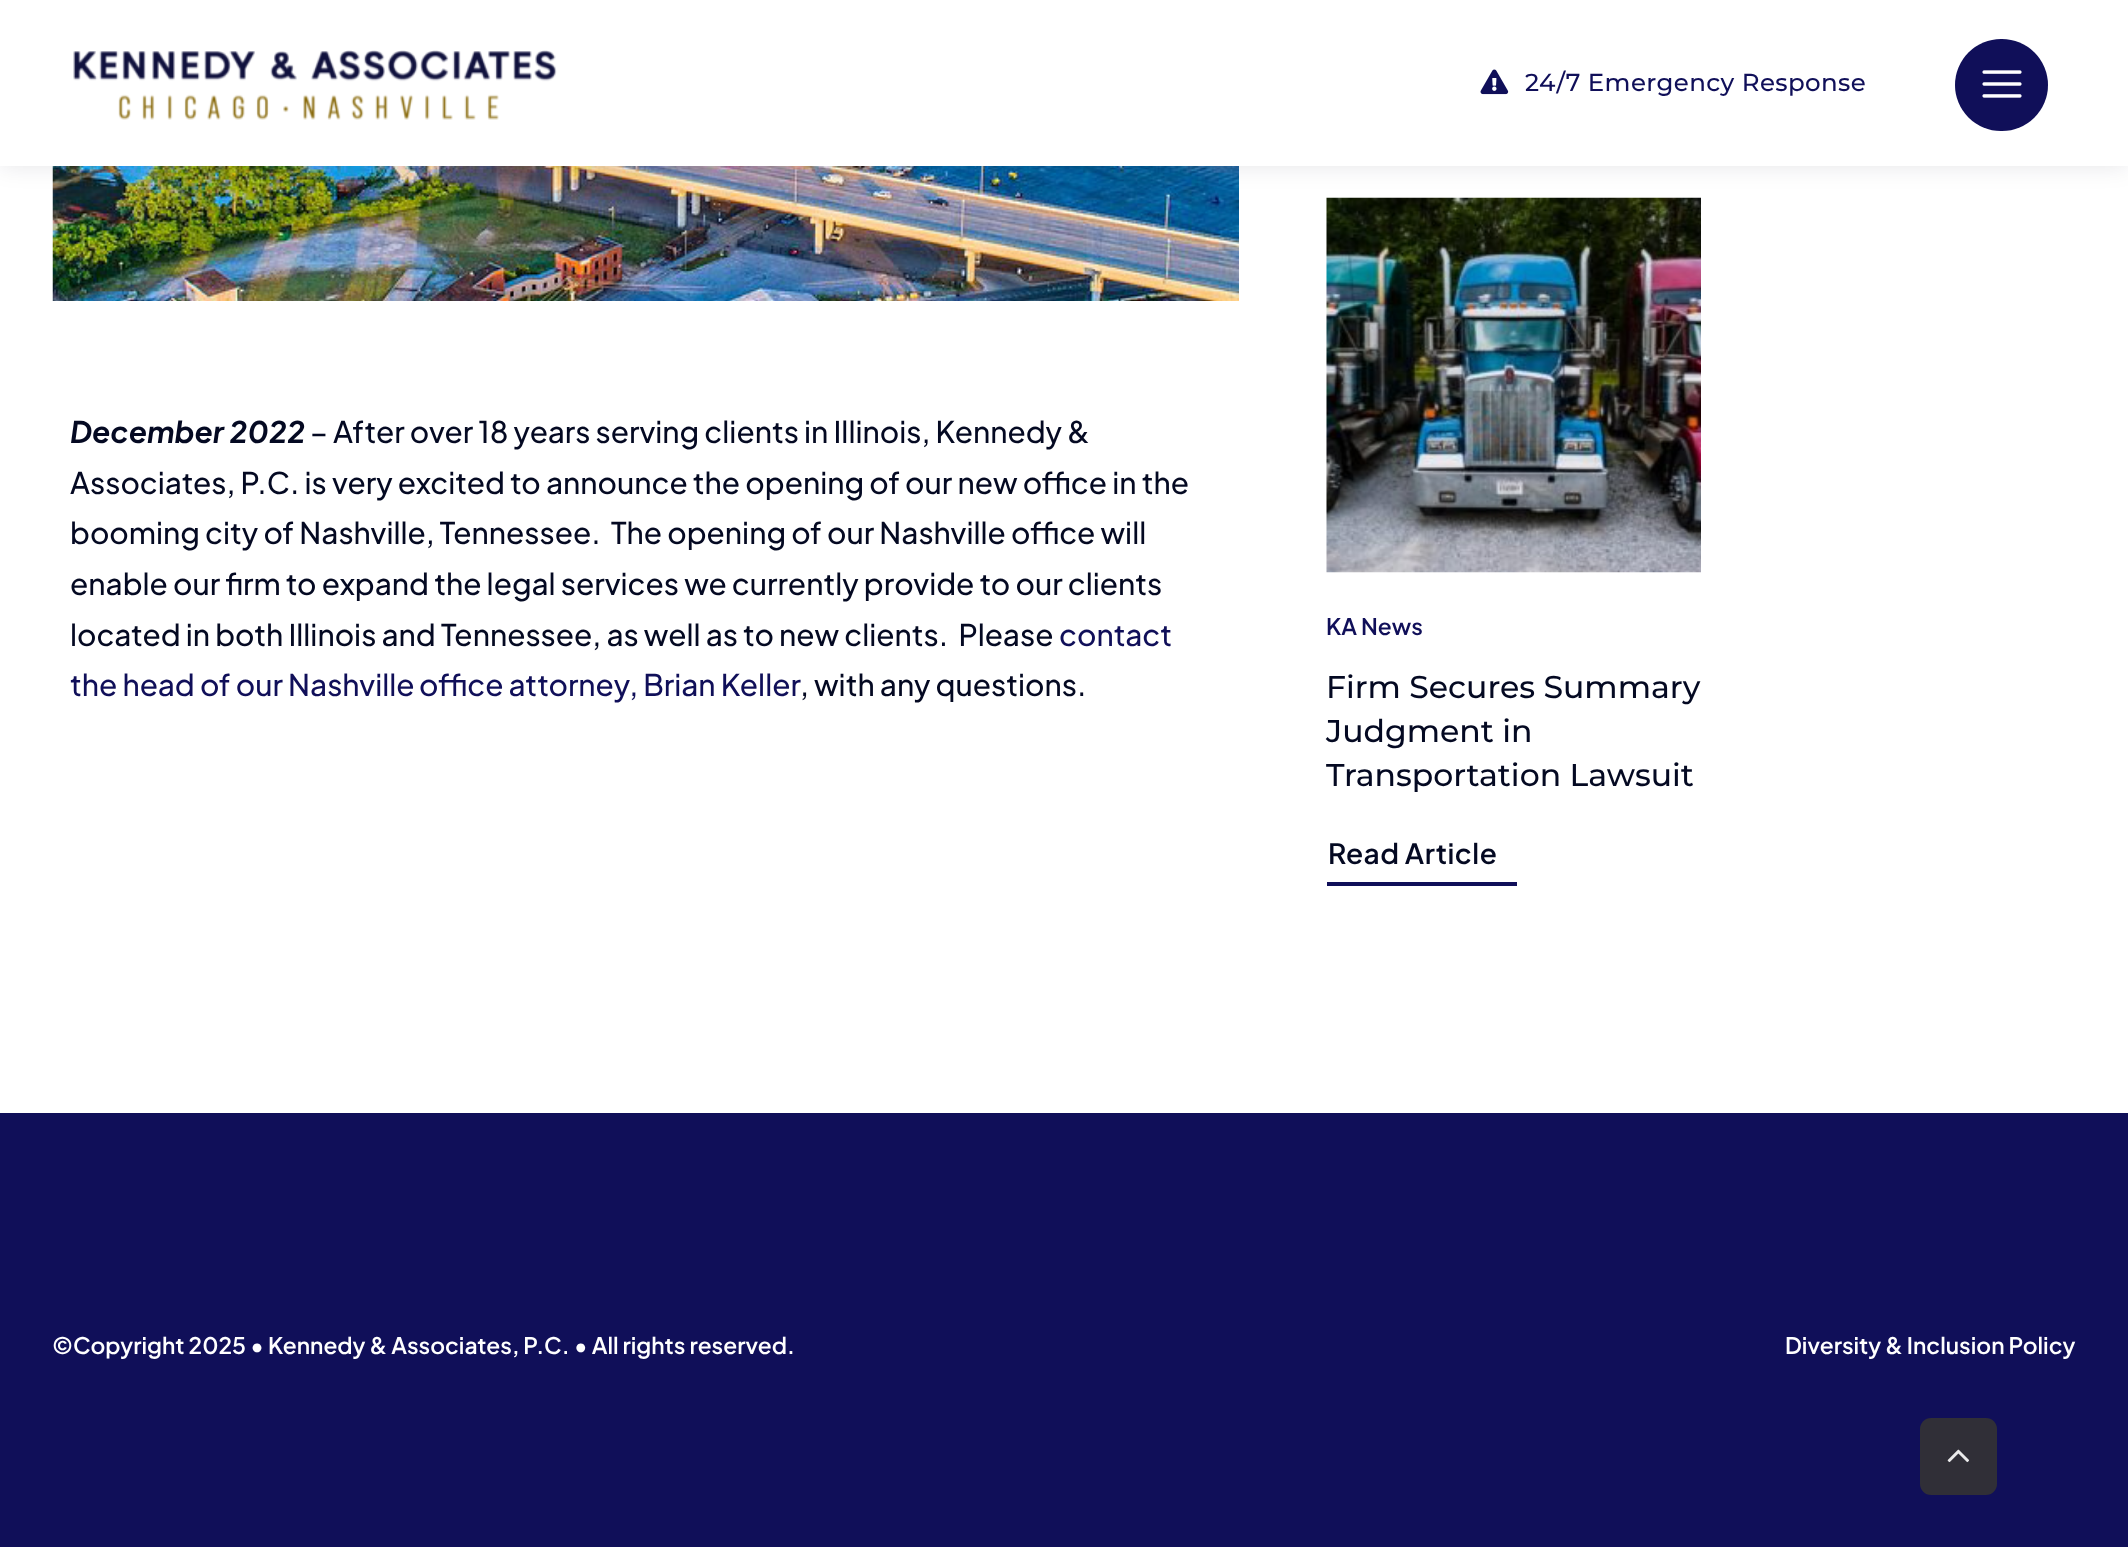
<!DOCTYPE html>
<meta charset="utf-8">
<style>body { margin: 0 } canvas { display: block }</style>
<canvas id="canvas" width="2128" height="1547"></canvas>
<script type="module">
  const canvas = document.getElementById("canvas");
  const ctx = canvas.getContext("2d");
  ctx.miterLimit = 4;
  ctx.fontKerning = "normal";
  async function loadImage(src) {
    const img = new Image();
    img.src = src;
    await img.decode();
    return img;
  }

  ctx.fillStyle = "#ffffff";
  ctx.fillRect(0, 0, 2128, 1547);
  ctx.drawImage(await loadImage("img4.png"), 52, 166, 1187, 135);
  ctx.drawImage(await loadImage("img5.png"), 1326, 197, 375, 376);
  ctx.fillStyle = "rgba(4, 8, 32, 0.1)";
  ctx.filter = "blur(11.5px)";
  ctx.beginPath();
  ctx.rect(0, 0, 2128, 166);
  ctx.fill();
  ctx.filter = "none";
  ctx.fillStyle = "#ffffff";
  ctx.fillRect(0, 0, 2128, 166);
  ctx.drawImage(await loadImage("img1.png"), 73, 50, 484, 70);
  ctx.drawImage(await loadImage("img2.png"), 1480, 69, 29, 26);
  ctx.letterSpacing = "0.4px";
  ctx.font = "500 24.5px Montserrat";
  ctx.fillStyle = "#100f59";
  ctx.fillText("24/7 Emergency Response", 1525, 91);
  ctx.beginPath();
  ctx.roundRect(1955, 39, 93, 92, 46);
  ctx.fill();
  ctx.drawImage(await loadImage("img3.png"), 1982, 70, 40, 28);
  ctx.letterSpacing = "0px";
  ctx.font = "italic bold 29.75px Plus Jakarta Sans";
  ctx.fillStyle = "#040922";
  ctx.fillText("December 2022", 70, 443);
  ctx.font = "500 29.75px Plus Jakarta Sans";
  ctx.fillText("– After over 18 years serving clients in Illinois, Kennedy &", 310, 443);
  ctx.fillText("Associates, P.C. is very excited to announce the opening of our new office in the", 70, 494);
  ctx.fillText("booming city of Nashville, Tennessee.  The opening of our Nashville office will", 70, 544);
  ctx.fillText("enable our firm to expand the legal services we currently provide to our clients", 70, 595);
  ctx.fillText("located in both Illinois and Tennessee, as well as to new clients.  Please", 70, 646);
  ctx.fillStyle = "#100f59";
  ctx.fillText("contact", 1059, 646);
  ctx.fillText("the head of our Nashville", 70, 696);
  ctx.fillText("office attorney, Brian Keller", 419, 696);
  ctx.fillStyle = "#040922";
  ctx.fillText(", with any questions.", 800, 696);
  ctx.font = "600 22.75px Plus Jakarta Sans";
  ctx.fillStyle = "#100f59";
  ctx.fillText("KA News", 1326, 635);
  ctx.font = "500 31.5px Montserrat";
  ctx.fillStyle = "#040922";
  ctx.fillText("Firm Secures Summary", 1326, 698);
  ctx.fillText("Judgment in", 1326, 742);
  ctx.fillText("Transportation Lawsuit", 1326, 786);
  ctx.fillStyle = "#100f59";
  ctx.fillRect(1327, 882, 190, 4);
  ctx.letterSpacing = "0.5px";
  ctx.font = "600 28px Plus Jakarta Sans";
  ctx.fillStyle = "#040922";
  ctx.fillText("Read Article", 1328, 864);
  ctx.fillStyle = "#100f59";
  ctx.fillRect(0, 1113, 2128, 434);
  ctx.letterSpacing = "0px";
  ctx.font = "600 22.75px Plus Jakarta Sans";
  ctx.fillStyle = "#ffffff";
  ctx.fillText("©Copyright 2025 • Kennedy & Associates, P.C. • All rights reserved.", 52, 1354);
  ctx.fillText("Diversity & Inclusion Policy", 1785, 1354);
  ctx.fillStyle = "#302f37";
  ctx.beginPath();
  ctx.roundRect(1920, 1418, 77, 77, 11);
  ctx.fill();
  ctx.drawImage(await loadImage("img6.png"), 1947, 1449, 22, 14);
</script>
